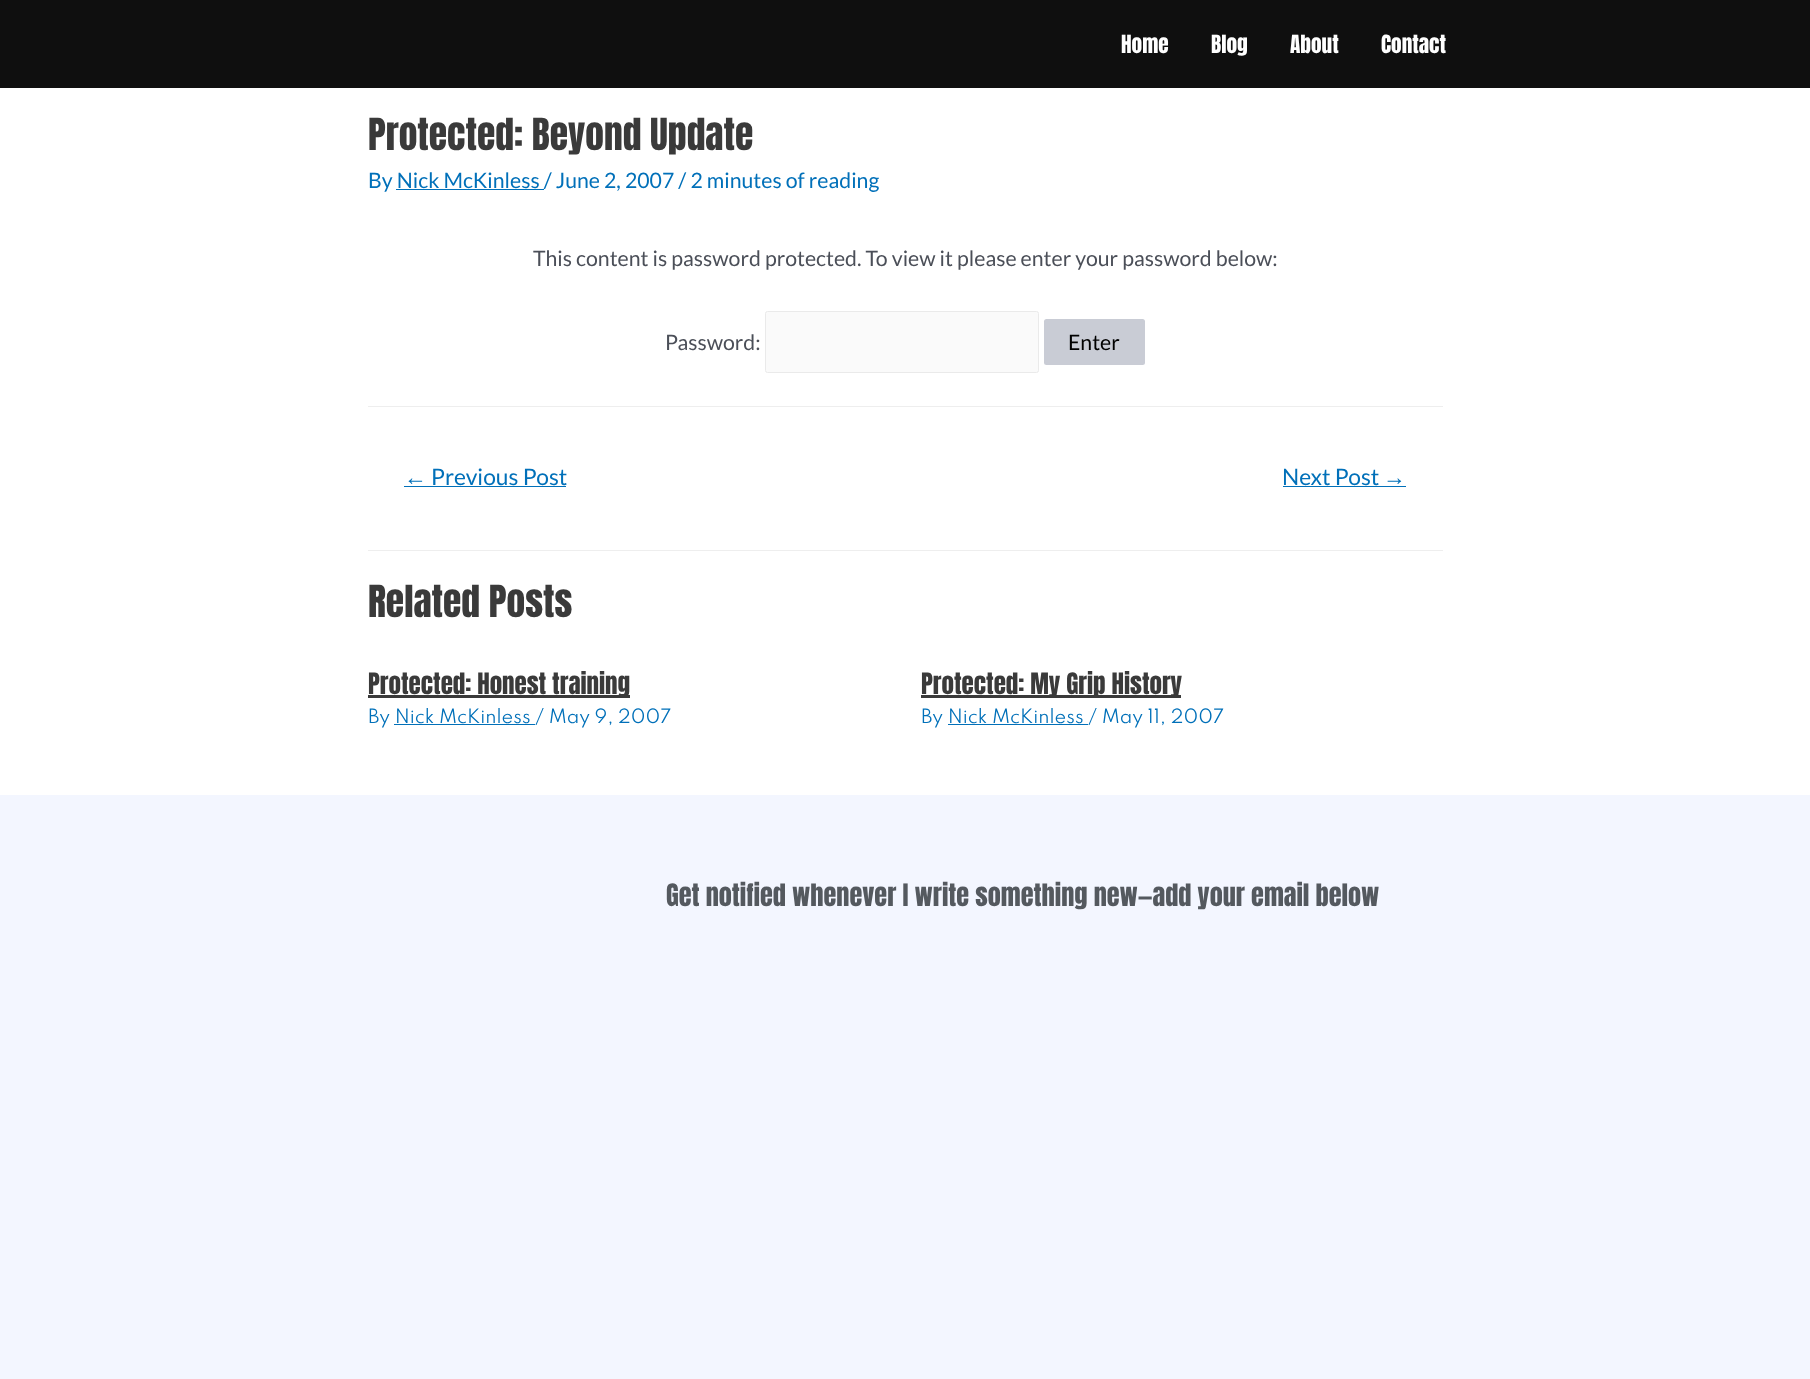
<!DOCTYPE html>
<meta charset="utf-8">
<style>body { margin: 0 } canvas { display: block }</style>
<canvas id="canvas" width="1810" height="1379"></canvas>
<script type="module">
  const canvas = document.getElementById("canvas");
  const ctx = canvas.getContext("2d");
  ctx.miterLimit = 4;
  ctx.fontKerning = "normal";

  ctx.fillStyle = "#ffffff";
  ctx.fillRect(0, 0, 1810, 1379);
  ctx.fillStyle = "#0f0f0f";
  ctx.fillRect(0, 0, 1810, 88);
  ctx.font = "21.25px Anton";
  ctx.fillStyle = "#ffffff";
  ctx.fillText("Home", 1121, 53);
  ctx.fillText("Blog", 1211, 53);
  ctx.fillText("About", 1290, 53);
  ctx.fillText("Contact", 1381, 53);
  ctx.font = "37.5px Anton";
  ctx.fillStyle = "#3a3a3a";
  ctx.fillText("Protected: Beyond Update", 368, 150);
  ctx.font = "21.25px Lato";
  ctx.fillStyle = "#0170b9";
  ctx.fillText("By Nick McKinless / June 2, 2007 / 2 minutes of reading", 368, 188);
  ctx.fillRect(396, 189, 148, 1);
  ctx.fillStyle = "#4b4f58";
  ctx.fillText("This content is password protected. To view it please enter your password below:", 533, 266);
  ctx.fillText("Password:", 665, 350);
  ctx.fillStyle = "#fafafa";
  ctx.beginPath();
  ctx.roundRect(765.5, 311.5, 273, 61, 2);
  ctx.fill();
  ctx.strokeStyle = "#eaeaea";
  ctx.stroke();
  ctx.fillStyle = "#c9ccd5";
  ctx.beginPath();
  ctx.roundRect(1044, 319, 101, 46, 2.5);
  ctx.fill();
  ctx.fillStyle = "#000000";
  ctx.fillText("Enter", 1068, 350);
  ctx.fillStyle = "#eeeeee";
  ctx.fillRect(368, 406, 1075, 1);
  ctx.font = "22.75px Liberation Sans";
  ctx.fillStyle = "#0170b9";
  ctx.fillText("←", 404, 485);
  ctx.fillRect(404, 486, 162, 1);
  ctx.font = "22.75px Lato";
  ctx.fillText("Previous Post", 431, 485);
  ctx.fillText("Next Post", 1282, 485);
  ctx.fillRect(1283, 486, 123, 1);
  ctx.font = "22.75px Liberation Sans";
  ctx.fillText("→", 1383, 485);
  ctx.fillStyle = "#eeeeee";
  ctx.fillRect(368, 550, 1075, 1);
  ctx.font = "37.5px Anton";
  ctx.fillStyle = "#3a3a3a";
  ctx.fillText("Related Posts", 368, 617);
  ctx.fillRect(368, 695, 262, 3);
  ctx.font = "25px Anton";
  ctx.fillText("Protected: Honest training", 368, 694);
  ctx.font = "100 17.5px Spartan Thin";
  ctx.fillStyle = "#0170b9";
  ctx.fillText("By Nick McKinless / May 9, 2007", 368, 723);
  ctx.fillRect(394, 724, 141, 1);
  ctx.fillStyle = "#3a3a3a";
  ctx.fillRect(921, 695, 260, 3);
  ctx.font = "25px Anton";
  ctx.fillText("Protected: My Grip History", 921, 694);
  ctx.font = "100 17.5px Spartan Thin";
  ctx.fillStyle = "#0170b9";
  ctx.fillText("By Nick McKinless / May 11, 2007", 921, 723);
  ctx.fillRect(948, 724, 140, 1);
  ctx.fillStyle = "#f3f6ff";
  ctx.fillRect(0, 795, 1810, 584);
  ctx.font = "26.25px Anton";
  ctx.fillStyle = "#54595f";
  ctx.fillText("Get notified whenever I write something new—add your email below", 666, 906);
</script>
